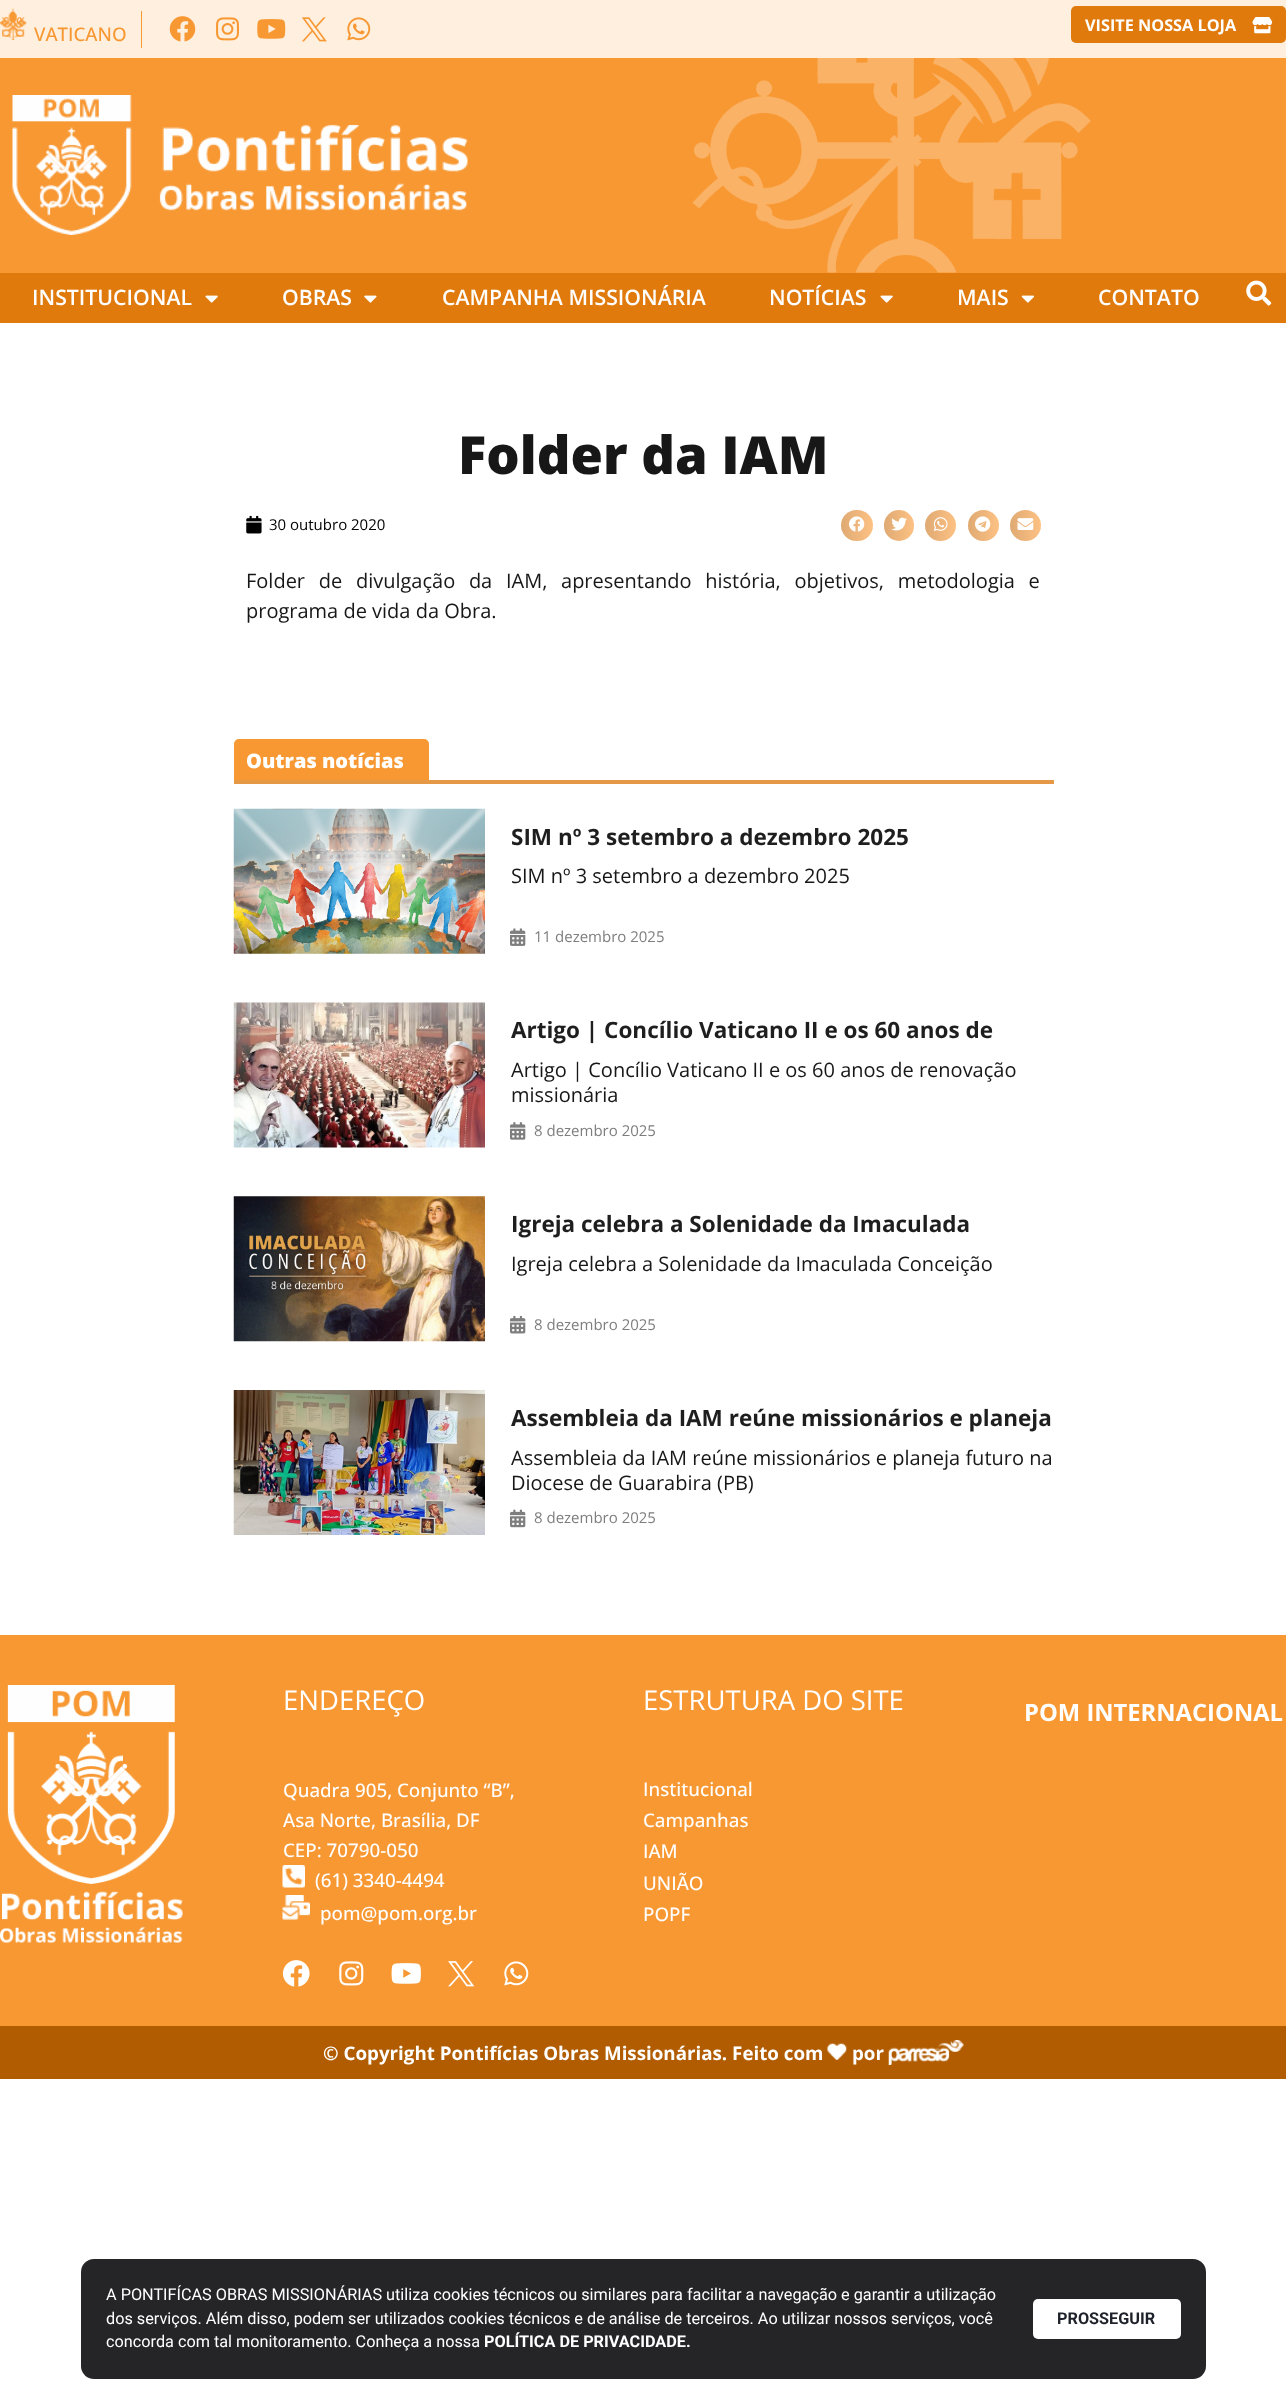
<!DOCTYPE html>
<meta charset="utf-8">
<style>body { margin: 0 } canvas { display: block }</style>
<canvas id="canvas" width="1286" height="2391"></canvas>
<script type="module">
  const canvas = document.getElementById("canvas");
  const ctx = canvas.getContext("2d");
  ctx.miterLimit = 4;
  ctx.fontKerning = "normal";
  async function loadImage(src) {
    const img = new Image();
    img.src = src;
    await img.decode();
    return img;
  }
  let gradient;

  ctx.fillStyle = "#ffffff";
  ctx.fillRect(0, 0, 1286, 2391);
  ctx.fillStyle = "#ffefde";
  ctx.fillRect(0, 0, 1286, 58);
  ctx.drawImage(await loadImage("img1.png"), 0, 8, 27, 32);
  ctx.font = "500 18.75px Open Sans";
  ctx.fillStyle = "#f89833";
  ctx.fillText("VATICANO", 34, 41);
  ctx.fillRect(141, 11, 1, 37);
  ctx.drawImage(await loadImage("img2.png"), 169, 16, 27, 26);
  ctx.drawImage(await loadImage("img3.png"), 216, 17, 24, 24);
  ctx.drawImage(await loadImage("img4.png"), 257, 19, 29, 20);
  ctx.drawImage(await loadImage("img5.png"), 301, 17, 26, 25);
  ctx.drawImage(await loadImage("img6.png"), 347, 17, 24, 24);
  ctx.fillStyle = "#e07a0d";
  ctx.beginPath();
  ctx.roundRect(1071, 6, 215, 37, 5);
  ctx.fill();
  ctx.font = "bold 16.25px Open Sans";
  ctx.fillStyle = "#ffffff";
  ctx.fillText("VISITE NOSSA LOJA", 1085, 31);
  ctx.drawImage(await loadImage("img7.png"), 1252, 17, 21, 17);
  ctx.fillStyle = "#f89833";
  ctx.fillRect(0, 58, 1286, 215);
  ctx.drawImage(await loadImage("img8.png"), 692, 58, 399, 215);
  ctx.drawImage(await loadImage("img9.png"), 12, 95, 456, 140);
  ctx.fillStyle = "#e07a0d";
  ctx.fillRect(0, 273, 1286, 50);
  ctx.font = "600 21.25px Open Sans";
  ctx.fillStyle = "#ffffff";
  ctx.fillText("INSTITUCIONAL", 32, 305);
  ctx.drawImage(await loadImage("img10.png"), 205, 295, 13, 8);
  ctx.fillText("OBRAS", 282, 305);
  ctx.drawImage(await loadImage("img11.png"), 364, 295, 13, 8);
  ctx.fillText("CAMPANHA MISSIONÁRIA", 442, 305);
  ctx.fillText("NOTÍCIAS", 769, 305);
  ctx.drawImage(await loadImage("img10.png"), 880, 295, 13, 8);
  ctx.fillText("MAIS", 957, 305);
  ctx.drawImage(await loadImage("img12.png"), 1021, 295, 13, 8);
  ctx.fillText("CONTATO", 1098, 305);
  ctx.drawImage(await loadImage("img13.png"), 1246, 280, 26, 26);
  ctx.font = "800 52.5px Open Sans";
  ctx.fillStyle = "#171717";
  ctx.fillText("Folder da IAM", 458, 474);
  ctx.drawImage(await loadImage("img14.png"), 246, 515, 16, 19);
  ctx.font = "15px Open Sans";
  ctx.fillStyle = "#000000";
  ctx.fillText("30 outubro 2020", 269, 530);
  ctx.fillStyle = "#fdc183";
  ctx.beginPath();
  ctx.roundRect(841, 510, 32, 31, 15.5);
  ctx.fill();
  gradient = ctx.createLinearGradient(841, 526, 873, 526);
  gradient.addColorStop(0, "rgba(0, 0, 0, 0.12)");
  gradient.addColorStop(1, "rgba(0, 0, 0, 0)");
  ctx.fillStyle = gradient;
  ctx.beginPath();
  ctx.roundRect(841, 510, 32, 31, 15.5);
  ctx.fill();
  ctx.drawImage(await loadImage("img15.png"), 849, 516, 16, 16);
  ctx.fillStyle = "#fdc183";
  ctx.beginPath();
  ctx.roundRect(884, 510, 30, 31, 15);
  ctx.fill();
  gradient = ctx.createLinearGradient(884, 526, 914, 526);
  gradient.addColorStop(0, "rgba(0, 0, 0, 0.12)");
  gradient.addColorStop(1, "rgba(0, 0, 0, 0)");
  ctx.fillStyle = gradient;
  ctx.beginPath();
  ctx.roundRect(884, 510, 30, 31, 15);
  ctx.fill();
  ctx.drawImage(await loadImage("img16.png"), 891, 517, 16, 14);
  ctx.fillStyle = "#fdc183";
  ctx.beginPath();
  ctx.arc(940.5, 525.5, 15.5, 0, Math.PI * 2);
  ctx.fill();
  gradient = ctx.createLinearGradient(925, 526, 956, 526);
  gradient.addColorStop(0, "rgba(0, 0, 0, 0.12)");
  gradient.addColorStop(1, "rgba(0, 0, 0, 0)");
  ctx.fillStyle = gradient;
  ctx.beginPath();
  ctx.arc(940.5, 525.5, 15.5, 0, Math.PI * 2);
  ctx.fill();
  ctx.drawImage(await loadImage("img17.png"), 933, 517, 15, 14);
  ctx.fillStyle = "#fdc183";
  ctx.beginPath();
  ctx.arc(983.5, 525.5, 15.5, 0, Math.PI * 2);
  ctx.fill();
  gradient = ctx.createLinearGradient(968, 526, 999, 526);
  gradient.addColorStop(0, "rgba(0, 0, 0, 0.12)");
  gradient.addColorStop(1, "rgba(0, 0, 0, 0)");
  ctx.fillStyle = gradient;
  ctx.beginPath();
  ctx.arc(983.5, 525.5, 15.5, 0, Math.PI * 2);
  ctx.fill();
  ctx.drawImage(await loadImage("img18.png"), 975, 516, 16, 16);
  ctx.fillStyle = "#fdc183";
  ctx.beginPath();
  ctx.arc(1025.5, 525.5, 15.5, 0, Math.PI * 2);
  ctx.fill();
  gradient = ctx.createLinearGradient(1010, 526, 1041, 526);
  gradient.addColorStop(0, "rgba(0, 0, 0, 0.12)");
  gradient.addColorStop(1, "rgba(0, 0, 0, 0)");
  ctx.fillStyle = gradient;
  ctx.beginPath();
  ctx.arc(1025.5, 525.5, 15.5, 0, Math.PI * 2);
  ctx.fill();
  ctx.drawImage(await loadImage("img19.png"), 1017, 518, 17, 12);
  ctx.wordSpacing = "8.5px";
  ctx.font = "20px Open Sans";
  ctx.fillStyle = "#171717";
  ctx.fillText("Folder de divulgação da IAM, apresentando história, objetivos, metodologia e", 246, 588);
  ctx.wordSpacing = "0px";
  ctx.fillText("programa de vida da Obra.", 246, 618);
  ctx.fillStyle = "#f89833";
  ctx.beginPath();
  ctx.roundRect(234, 739, 195, 45, [5, 5, 0, 0]);
  ctx.fill();
  ctx.font = "800 20px Open Sans";
  ctx.fillStyle = "#ffffff";
  ctx.fillText("Outras notícias", 246, 768);
  ctx.fillStyle = "#e59846";
  ctx.fillRect(234, 780, 820, 4);
  ctx.drawImage(await loadImage("img20.png"), 233, 808, 252, 146);
  ctx.font = "bold 22.5px Open Sans";
  ctx.fillStyle = "#1e1e1e";
  ctx.fillText("SIM nº 3 setembro a dezembro 2025", 511, 845);
  ctx.font = "20px Open Sans";
  ctx.fillStyle = "#171717";
  ctx.fillText("SIM nº 3 setembro a dezembro 2025", 511, 883);
  ctx.drawImage(await loadImage("img21.png"), 510, 928, 16, 18);
  ctx.font = "15px Open Sans";
  ctx.fillStyle = "#7e7e7e";
  ctx.fillText("11 dezembro 2025", 534, 942);
  ctx.drawImage(await loadImage("img22.png"), 233, 1002, 252, 146);
  ctx.font = "bold 22.5px Open Sans";
  ctx.fillStyle = "#1e1e1e";
  ctx.fillText("Artigo | Concílio Vaticano II e os 60 anos de", 511, 1038);
  ctx.font = "20px Open Sans";
  ctx.fillStyle = "#171717";
  ctx.fillText("Artigo | Concílio Vaticano II e os 60 anos de renovação", 511, 1077);
  ctx.fillText("missionária", 511, 1102);
  ctx.drawImage(await loadImage("img23.png"), 510, 1122, 16, 18);
  ctx.font = "15px Open Sans";
  ctx.fillStyle = "#7e7e7e";
  ctx.fillText("8 dezembro 2025", 534, 1136);
  ctx.drawImage(await loadImage("img24.png"), 233, 1196, 252, 146);
  ctx.font = "bold 22.5px Open Sans";
  ctx.fillStyle = "#1e1e1e";
  ctx.fillText("Igreja celebra a Solenidade da Imaculada", 511, 1232);
  ctx.font = "20px Open Sans";
  ctx.fillStyle = "#171717";
  ctx.fillText("Igreja celebra a Solenidade da Imaculada Conceição", 511, 1271);
  ctx.drawImage(await loadImage("img25.png"), 510, 1315, 16, 19);
  ctx.font = "15px Open Sans";
  ctx.fillStyle = "#7e7e7e";
  ctx.fillText("8 dezembro 2025", 534, 1330);
  ctx.drawImage(await loadImage("img26.png"), 233, 1390, 252, 145);
  ctx.font = "bold 22.5px Open Sans";
  ctx.fillStyle = "#1e1e1e";
  ctx.fillText("Assembleia da IAM reúne missionários e planeja", 511, 1426);
  ctx.font = "20px Open Sans";
  ctx.fillStyle = "#171717";
  ctx.fillText("Assembleia da IAM reúne missionários e planeja futuro na", 511, 1465);
  ctx.fillText("Diocese de Guarabira (PB)", 511, 1490);
  ctx.drawImage(await loadImage("img27.png"), 510, 1509, 16, 19);
  ctx.font = "15px Open Sans";
  ctx.fillStyle = "#7e7e7e";
  ctx.fillText("8 dezembro 2025", 534, 1523);
  ctx.fillStyle = "#f89833";
  ctx.fillRect(0, 1635, 1286, 391);
  ctx.drawImage(await loadImage("img28.png"), 0, 1685, 183, 258);
  ctx.font = "27.5px Open Sans";
  ctx.fillStyle = "#ffffff";
  ctx.fillText("ENDEREÇO", 283, 1710);
  ctx.font = "500 18.75px Open Sans";
  ctx.fillText("Quadra 905, Conjunto “B”,", 283, 1797);
  ctx.fillText("Asa Norte, Brasília, DF", 283, 1827);
  ctx.fillText("CEP: 70790-050", 283, 1857);
  ctx.drawImage(await loadImage("img29.png"), 282, 1865, 23, 23);
  ctx.fillText("(61) 3340-4494", 315, 1887);
  ctx.drawImage(await loadImage("img30.png"), 282, 1895, 28, 25);
  ctx.fillText("pom@pom.org.br", 320, 1920);
  ctx.drawImage(await loadImage("img31.png"), 282, 1960, 28, 27);
  ctx.drawImage(await loadImage("img32.png"), 339, 1961, 25, 25);
  ctx.drawImage(await loadImage("img33.png"), 391, 1963, 30, 21);
  ctx.drawImage(await loadImage("img34.png"), 448, 1961, 27, 26);
  ctx.drawImage(await loadImage("img35.png"), 504, 1961, 25, 25);
  ctx.fillStyle = "#252528";
  ctx.beginPath();
  ctx.roundRect(81, 2259, 1125, 120, 13);
  ctx.fill();
  ctx.font = "16.25px Roboto";
  ctx.fillStyle = "#ffffff";
  ctx.fillText("A PONTIFÍCAS OBRAS MISSIONÁRIAS utiliza cookies técnicos ou similares para facilitar a navegação e garantir a utilização", 106, 2300);
  ctx.fillText("dos serviços. Além disso, podem ser utilizados cookies técnicos e de análise de terceiros. Ao utilizar nossos serviços, você", 106, 2324);
  ctx.fillText("concorda com tal monitoramento. Conheça a nossa", 106, 2347);
  ctx.font = "bold 16.25px Roboto";
  ctx.fillText("POLÍTICA DE PRIVACIDADE.", 484, 2347);
  ctx.beginPath();
  ctx.roundRect(1033, 2299, 148, 40, 5);
  ctx.fill();
  ctx.fillStyle = "#1d2129";
  ctx.fillText("PROSSEGUIR", 1057, 2324);
  ctx.font = "27.5px Open Sans";
  ctx.fillStyle = "#ffffff";
  ctx.fillText("ESTRUTURA DO SITE", 643, 1710);
  ctx.font = "500 18.75px Open Sans";
  ctx.fillText("Institucional", 643, 1796);
  ctx.fillText("Campanhas", 643, 1827);
  ctx.fillText("IAM", 643, 1858);
  ctx.fillText("UNIÃO", 643, 1890);
  ctx.fillText("POPF", 643, 1921);
  ctx.font = "bold 23.75px Open Sans";
  ctx.fillText("POM INTERNACIONAL", 1024, 1721);
  ctx.fillStyle = "#b15c00";
  ctx.fillRect(0, 2026, 1286, 53);
  ctx.font = "bold 18.75px Open Sans";
  ctx.fillStyle = "#ffffff";
  ctx.fillText("© Copyright Pontifícias Obras Missionárias. Feito com", 323, 2060);
  ctx.drawImage(await loadImage("img36.png"), 827, 2043, 20, 17);
  ctx.fillText("por", 852, 2060);
  ctx.drawImage(await loadImage("img37.png"), 888, 2040, 76, 25);
</script>
